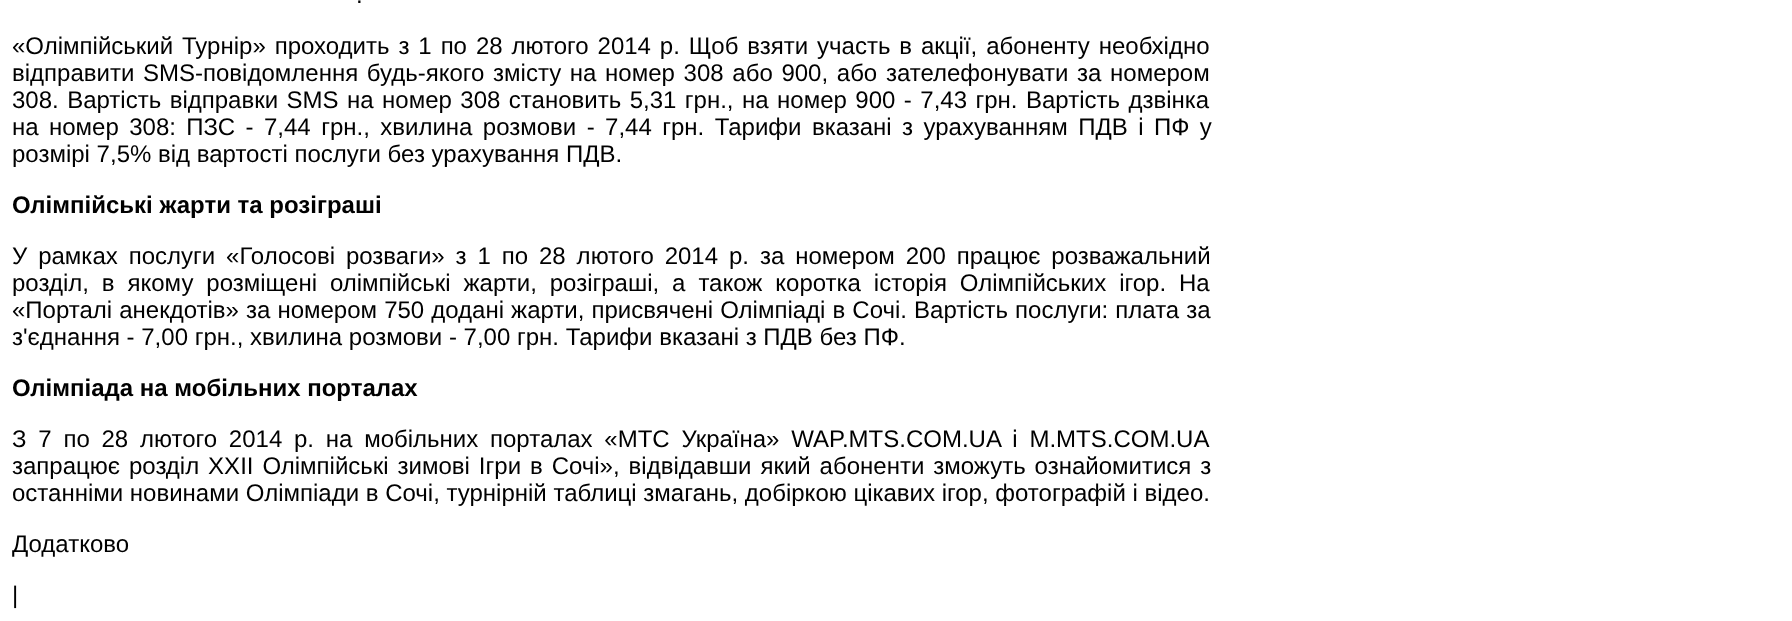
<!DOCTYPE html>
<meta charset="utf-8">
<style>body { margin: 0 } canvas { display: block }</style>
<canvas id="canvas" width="1792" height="621"></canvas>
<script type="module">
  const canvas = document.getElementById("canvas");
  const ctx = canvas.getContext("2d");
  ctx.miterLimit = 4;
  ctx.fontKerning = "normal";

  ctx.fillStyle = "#ffffff";
  ctx.fillRect(0, 0, 1792, 621);
  ctx.font = "24px Liberation Sans";
  ctx.fillStyle = "#000000";
  ctx.fillText(".", 356, 3);
  ctx.wordSpacing = "2.25px";
  ctx.fillText("«Олімпійський Турнір» проходить з 1 по 28 лютого 2014 р. Щоб взяти участь в акції, абоненту необхідно", 12, 54);
  ctx.wordSpacing = "2px";
  ctx.fillText("відправити SMS-повідомлення будь-якого змісту на номер 308 або 900, або зателефонувати за номером", 12, 81);
  ctx.wordSpacing = "1.8px";
  ctx.fillText("308. Вартість відправки SMS на номер 308 становить 5,31 грн., на номер 900 - 7,43 грн. Вартість дзвінка", 12, 108);
  ctx.wordSpacing = "3.75px";
  ctx.fillText("на номер 308: ПЗС - 7,44 грн., хвилина розмови - 7,44 грн. Тарифи вказані з урахуванням ПДВ і ПФ у", 12, 135);
  ctx.wordSpacing = "0px";
  ctx.fillText("розмірі 7,5% від вартості послуги без урахування ПДВ.", 12, 162);
  ctx.font = "bold 24px Liberation Sans";
  ctx.fillText("Олімпійські жарти та розіграші", 12, 213);
  ctx.wordSpacing = "4.25px";
  ctx.font = "24px Liberation Sans";
  ctx.fillText("У рамках послуги «Голосові розваги» з 1 по 28 лютого 2014 р. за номером 200 працює розважальний", 12, 264);
  ctx.wordSpacing = "6.25px";
  ctx.fillText("розділ, в якому розміщені олімпійські жарти, розіграші, а також коротка історія Олімпійських ігор. На", 12, 291);
  ctx.wordSpacing = "0.4px";
  ctx.fillText("«Порталі анекдотів» за номером 750 додані жарти, присвячені Олімпіаді в Сочі. Вартість послуги: плата за", 12, 318);
  ctx.wordSpacing = "0px";
  ctx.fillText("з'єднання - 7,00 грн., хвилина розмови - 7,00 грн. Тарифи вказані з ПДВ без ПФ.", 12, 345);
  ctx.font = "bold 24px Liberation Sans";
  ctx.fillText("Олімпіада на мобільних порталах", 12, 396);
  ctx.wordSpacing = "5.1px";
  ctx.font = "24px Liberation Sans";
  ctx.fillText("З 7 по 28 лютого 2014 р. на мобільних порталах «МТС Україна» WAP.MTS.COM.UA і M.MTS.COM.UA", 12, 447);
  ctx.wordSpacing = "2.25px";
  ctx.fillText("запрацює розділ XXII Олімпійські зимові Ігри в Сочі», відвідавши який абоненти зможуть ознайомитися з", 12, 474);
  ctx.wordSpacing = "0px";
  ctx.fillText("останніми новинами Олімпіади в Сочі, турнірній таблиці змагань, добіркою цікавих ігор, фотографій і відео.", 12, 501);
  ctx.fillText("Додатково", 12, 552);
  ctx.fillText("|", 12, 603);
</script>
